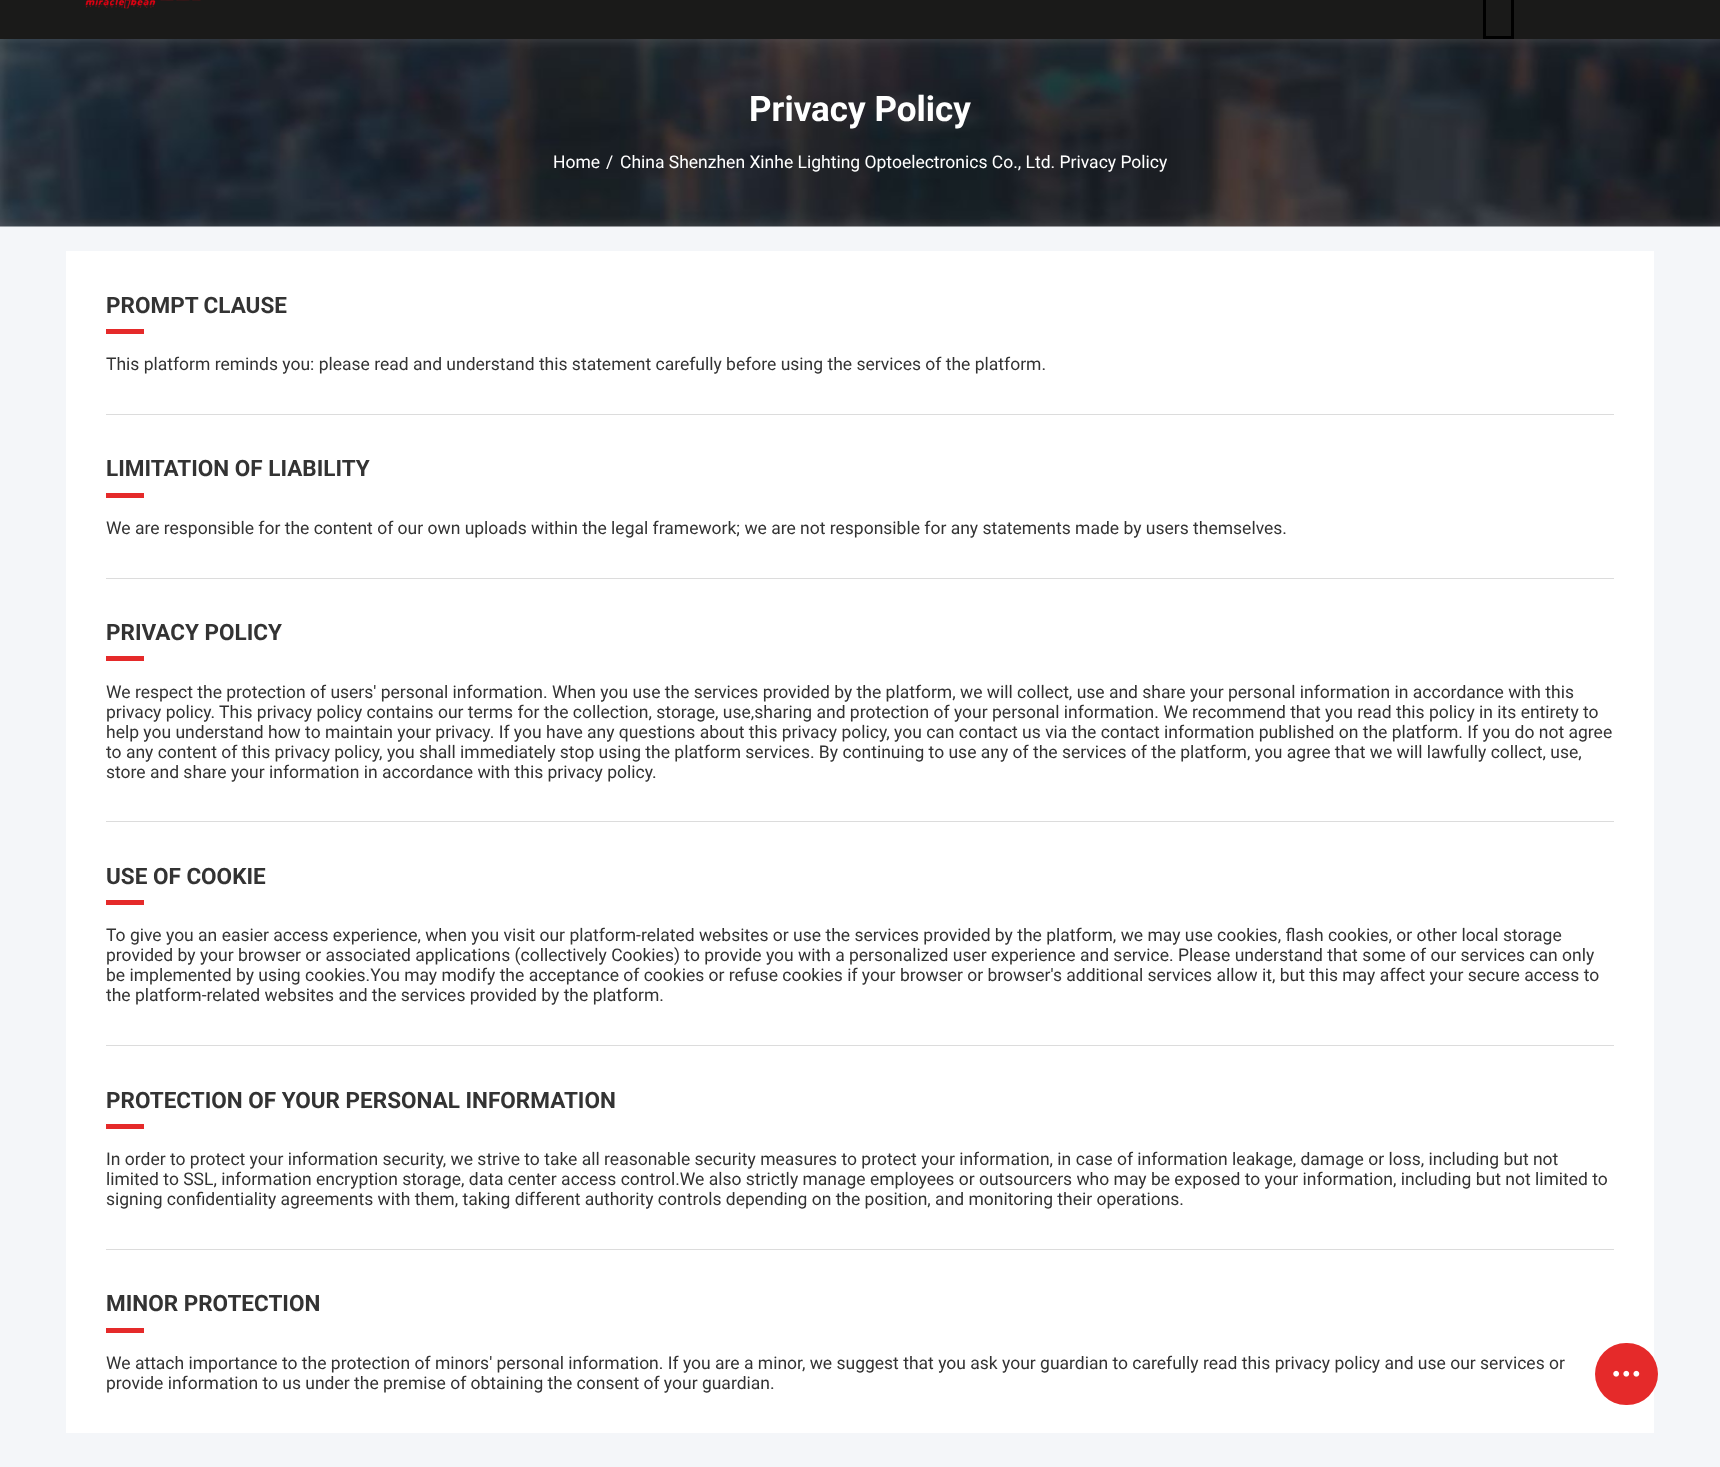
<!DOCTYPE html>
<meta charset="utf-8">
<style>body { margin: 0 } canvas { display: block }</style>
<canvas id="canvas" width="1720" height="1467"></canvas>
<script type="module">
  const canvas = document.getElementById("canvas");
  const ctx = canvas.getContext("2d");
  ctx.miterLimit = 4;
  ctx.fontKerning = "normal";
  async function loadImage(src) {
    const img = new Image();
    img.src = src;
    await img.decode();
    return img;
  }

  ctx.fillStyle = "#f4f6f9";
  ctx.fillRect(0, 0, 1720, 1467);
  ctx.fillStyle = "#1a1a19";
  ctx.fillRect(0, 0, 1720, 39);
  ctx.drawImage(await loadImage("img1.png"), 85, 0, 116, 9);
  ctx.strokeStyle = "#000000";
  ctx.lineWidth = 3;
  ctx.strokeRect(1484.5, -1.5, 28, 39);
  ctx.drawImage(await loadImage("img2.png"), 0, 39, 1720, 188);
  ctx.font = "bold 35px Roboto";
  ctx.fillStyle = "#ffffff";
  ctx.fillText("Privacy Policy", 749, 121);
  ctx.font = "17.5px Roboto";
  ctx.fillText("Home", 553, 168);
  ctx.fillText("/", 606, 168);
  ctx.fillText("China Shenzhen Xinhe Lighting Optoelectronics Co., Ltd. Privacy Policy", 620, 168);
  ctx.fillRect(66, 251, 1588, 1182);
  ctx.fillStyle = "#dcdcdc";
  ctx.fillRect(106, 414, 1508, 1);
  ctx.font = "bold 22.5px Roboto";
  ctx.fillStyle = "#333333";
  ctx.fillText("PROMPT CLAUSE", 106, 313);
  ctx.fillStyle = "#e52a2a";
  ctx.fillRect(106, 329, 38, 5);
  ctx.font = "17.5px Roboto";
  ctx.fillStyle = "#333333";
  ctx.fillText("This platform reminds you: please read and understand this statement carefully before using the services of the platform.", 106, 370);
  ctx.fillStyle = "#dcdcdc";
  ctx.fillRect(106, 578, 1508, 1);
  ctx.font = "bold 22.5px Roboto";
  ctx.fillStyle = "#333333";
  ctx.fillText("LIMITATION OF LIABILITY", 106, 476);
  ctx.fillStyle = "#e52a2a";
  ctx.fillRect(106, 493, 38, 5);
  ctx.font = "17.5px Roboto";
  ctx.fillStyle = "#333333";
  ctx.fillText("We are responsible for the content of our own uploads within the legal framework; we are not responsible for any statements made by users themselves.", 106, 534);
  ctx.fillStyle = "#dcdcdc";
  ctx.fillRect(106, 821, 1508, 1);
  ctx.font = "bold 22.5px Roboto";
  ctx.fillStyle = "#333333";
  ctx.fillText("PRIVACY POLICY", 106, 640);
  ctx.fillStyle = "#e52a2a";
  ctx.fillRect(106, 656, 38, 5);
  ctx.font = "17.5px Roboto";
  ctx.fillStyle = "#333333";
  ctx.fillText("We respect the protection of users' personal information. When you use the services provided by the platform, we will collect, use and share your personal information in accordance with this", 106, 698);
  ctx.fillText("privacy policy. This privacy policy contains our terms for the collection, storage, use,sharing and protection of your personal information. We recommend that you read this policy in its entirety to", 106, 718);
  ctx.fillText("help you understand how to maintain your privacy. If you have any questions about this privacy policy, you can contact us via the contact information published on the platform. If you do not agree", 106, 738);
  ctx.fillText("to any content of this privacy policy, you shall immediately stop using the platform services. By continuing to use any of the services of the platform, you agree that we will lawfully collect, use,", 106, 758);
  ctx.fillText("store and share your information in accordance with this privacy policy.", 106, 778);
  ctx.fillStyle = "#dcdcdc";
  ctx.fillRect(106, 1045, 1508, 1);
  ctx.font = "bold 22.5px Roboto";
  ctx.fillStyle = "#333333";
  ctx.fillText("USE OF COOKIE", 106, 884);
  ctx.fillStyle = "#e52a2a";
  ctx.fillRect(106, 900, 38, 5);
  ctx.font = "17.5px Roboto";
  ctx.fillStyle = "#333333";
  ctx.fillText("To give you an easier access experience, when you visit our platform-related websites or use the services provided by the platform, we may use cookies, flash cookies, or other local storage", 106, 941);
  ctx.fillText("provided by your browser or associated applications (collectively Cookies) to provide you with a personalized user experience and service. Please understand that some of our services can only", 106, 961);
  ctx.fillText("be implemented by using cookies.You may modify the acceptance of cookies or refuse cookies if your browser or browser's additional services allow it, but this may affect your secure access to", 106, 981);
  ctx.fillText("the platform-related websites and the services provided by the platform.", 106, 1001);
  ctx.fillStyle = "#dcdcdc";
  ctx.fillRect(106, 1249, 1508, 1);
  ctx.font = "bold 22.5px Roboto";
  ctx.fillStyle = "#333333";
  ctx.fillText("PROTECTION OF YOUR PERSONAL INFORMATION", 106, 1108);
  ctx.fillStyle = "#e52a2a";
  ctx.fillRect(106, 1124, 38, 5);
  ctx.font = "17.5px Roboto";
  ctx.fillStyle = "#333333";
  ctx.fillText("In order to protect your information security, we strive to take all reasonable security measures to protect your information, in case of information leakage, damage or loss, including but not", 106, 1165);
  ctx.fillText("limited to SSL, information encryption storage, data center access control.We also strictly manage employees or outsourcers who may be exposed to your information, including but not limited to", 106, 1185);
  ctx.fillText("signing confidentiality agreements with them, taking different authority controls depending on the position, and monitoring their operations.", 106, 1205);
  ctx.font = "bold 22.5px Roboto";
  ctx.fillText("MINOR PROTECTION", 106, 1311);
  ctx.fillStyle = "#e52a2a";
  ctx.fillRect(106, 1328, 38, 5);
  ctx.font = "17.5px Roboto";
  ctx.fillStyle = "#333333";
  ctx.fillText("We attach importance to the protection of minors' personal information. If you are a minor, we suggest that you ask your guardian to carefully read this privacy policy and use our services or", 106, 1369);
  ctx.fillText("provide information to us under the premise of obtaining the consent of your guardian.", 106, 1389);
  ctx.fillStyle = "#e52a2a";
  ctx.beginPath();
  ctx.roundRect(1595, 1343, 63, 62, 31);
  ctx.fill();
  ctx.drawImage(await loadImage("img3.png"), 1613, 1370, 27, 7);
</script>
